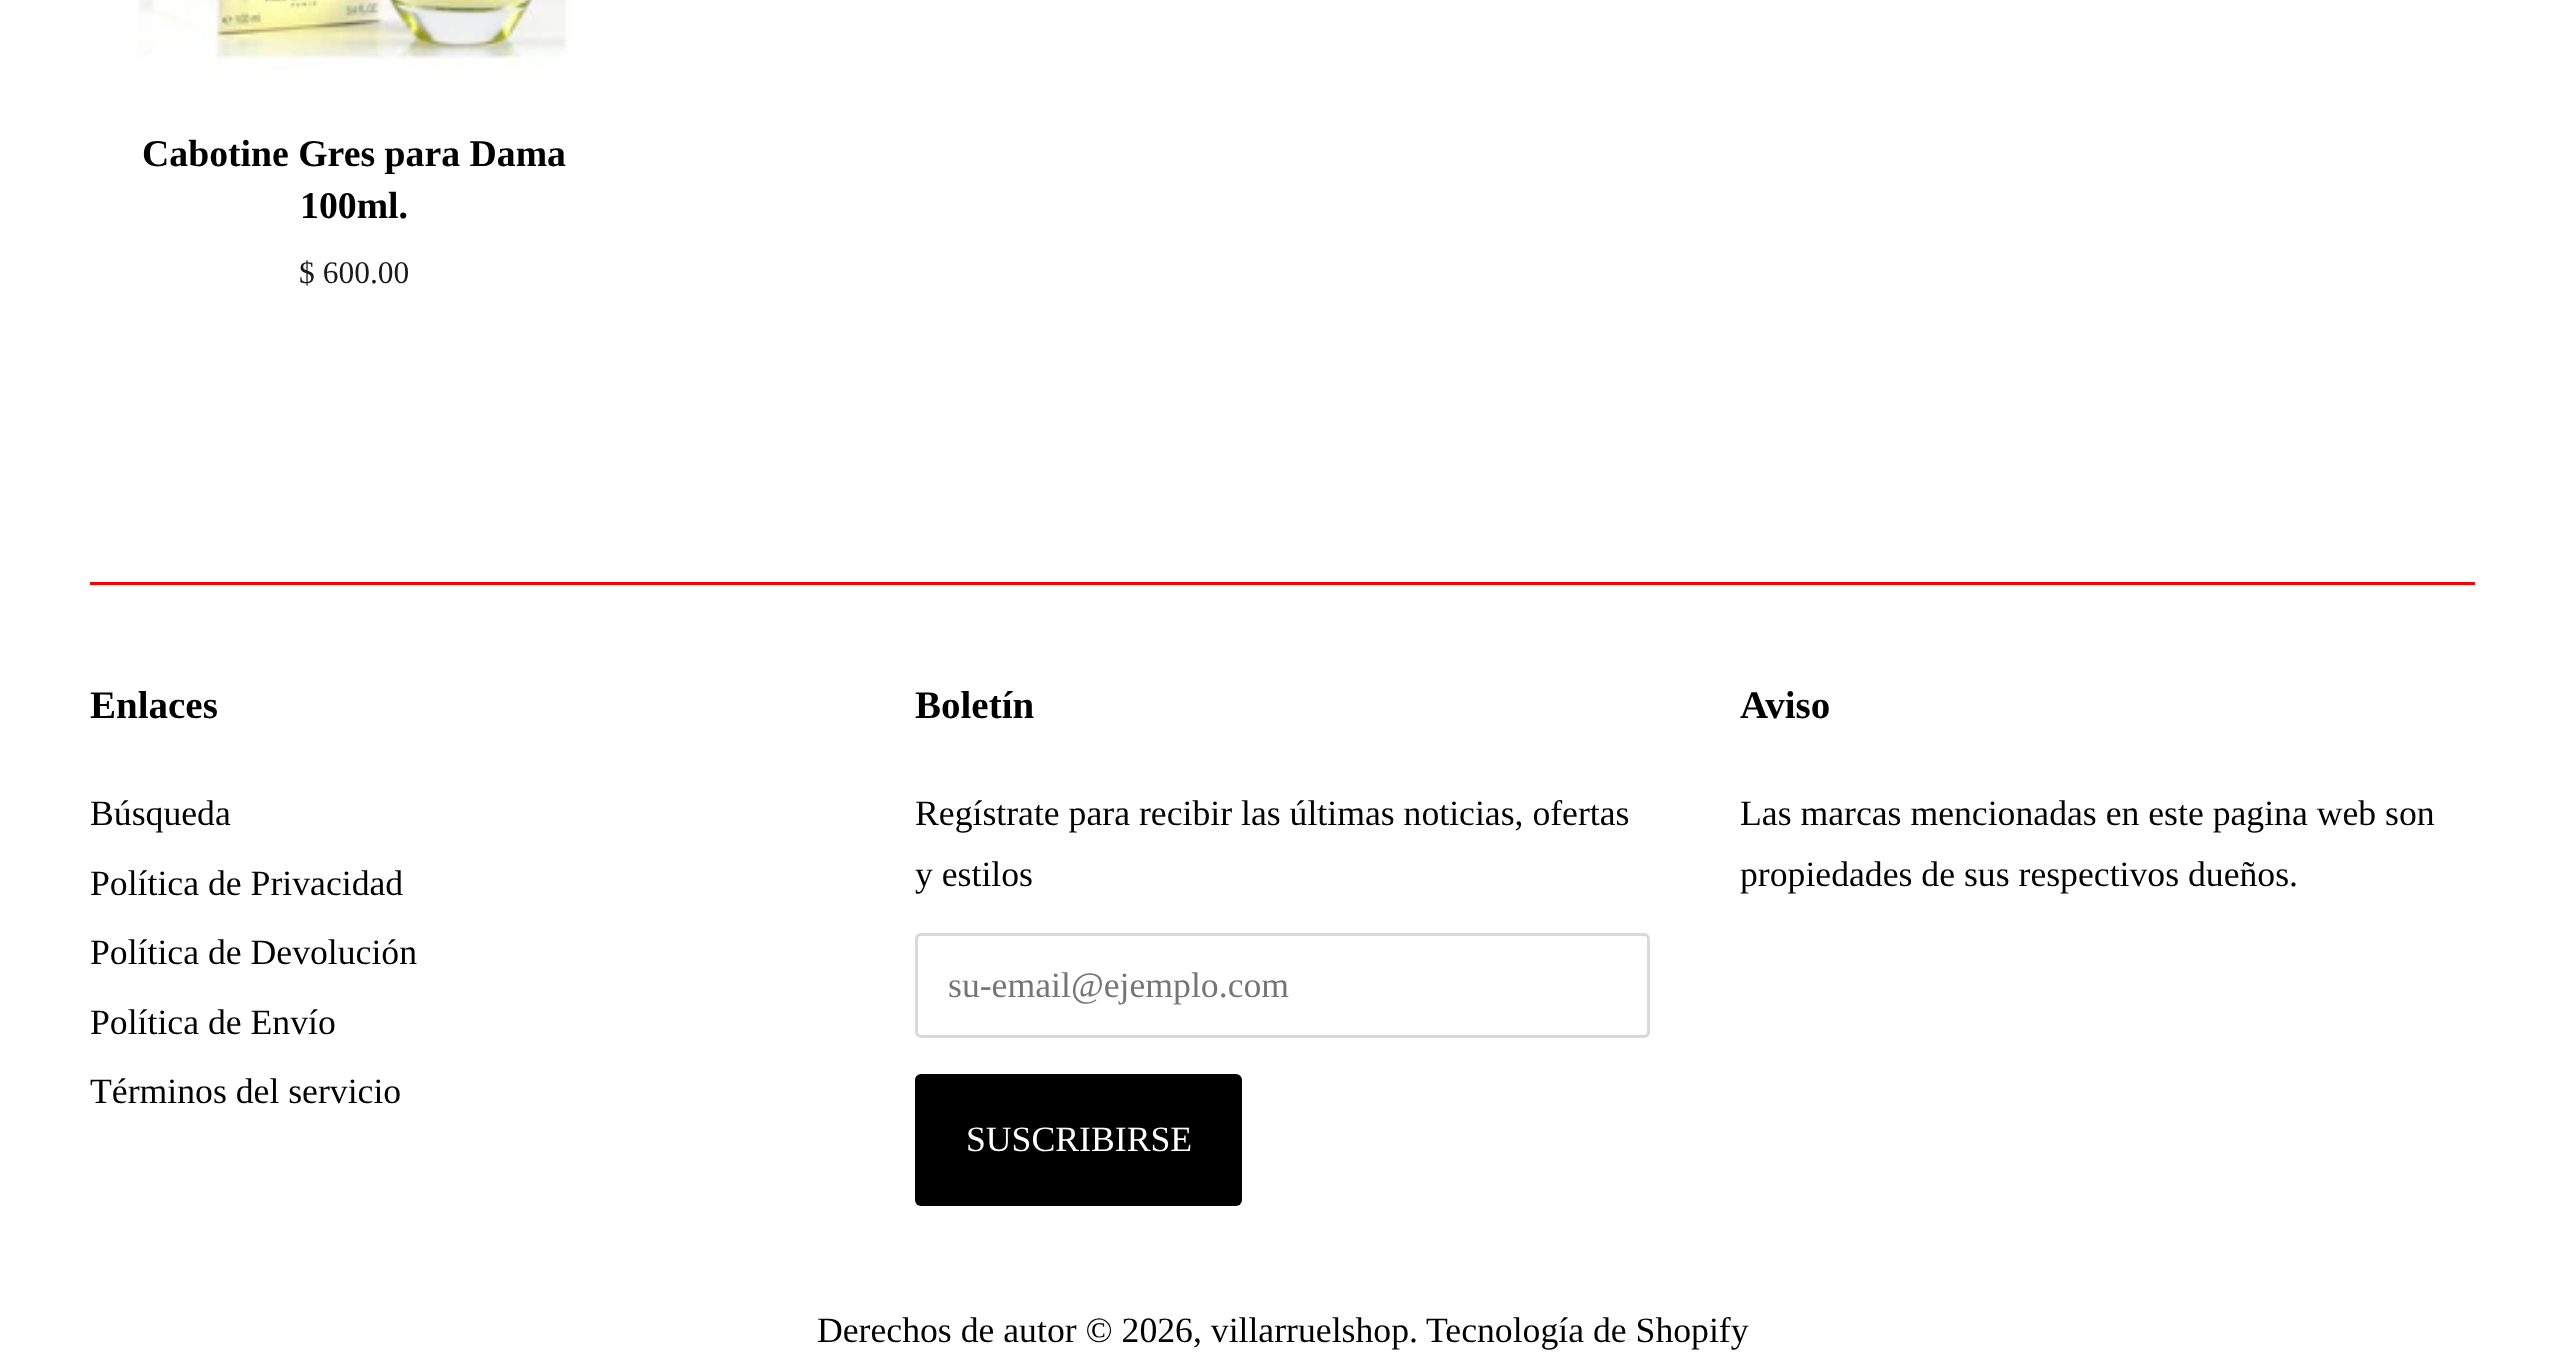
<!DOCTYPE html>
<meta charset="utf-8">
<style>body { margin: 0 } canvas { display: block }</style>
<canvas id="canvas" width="2565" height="1362"></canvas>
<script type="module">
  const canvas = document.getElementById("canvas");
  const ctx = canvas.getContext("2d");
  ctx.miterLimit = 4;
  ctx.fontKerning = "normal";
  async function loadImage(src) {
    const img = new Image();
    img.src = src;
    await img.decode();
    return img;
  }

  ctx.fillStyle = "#ffffff";
  ctx.fillRect(0, 0, 2565, 1362);
  ctx.drawImage(await loadImage("img1.png"), 137, 0, 433, 70);
  ctx.font = "bold 37.75px Liberation Serif";
  ctx.fillStyle = "#000000";
  ctx.fillText("Cabotine Gres para Dama", 142, 166);
  ctx.fillText("100ml.", 300, 218);
  ctx.font = "31.5px Liberation Serif";
  ctx.fillStyle = "#1a1a1a";
  ctx.fillText("$ 600.00", 299, 283);
  ctx.fillStyle = "#ff0000";
  ctx.fillRect(90, 582, 2385, 3);
  ctx.font = "bold 39px Liberation Serif";
  ctx.fillStyle = "#000000";
  ctx.fillText("Enlaces", 90, 718);
  ctx.font = "35.7px Liberation Serif";
  ctx.fillText("Búsqueda", 90, 825);
  ctx.fillText("Política de Privacidad", 90, 895);
  ctx.fillText("Política de Devolución", 90, 964);
  ctx.fillText("Política de Envío", 90, 1034);
  ctx.fillText("Términos del servicio", 90, 1103);
  ctx.font = "bold 39px Liberation Serif";
  ctx.fillText("Boletín", 915, 718);
  ctx.font = "35.7px Liberation Serif";
  ctx.fillText("Regístrate para recibir las últimas noticias, ofertas", 915, 825);
  ctx.fillText("y estilos", 915, 886);
  ctx.beginPath();
  ctx.roundRect(916.5, 934.5, 732, 102, 4.5);
  ctx.strokeStyle = "#d9d9d9";
  ctx.lineWidth = 3;
  ctx.stroke();
  ctx.fillStyle = "#757575";
  ctx.fillText("su-email@ejemplo.com", 948, 997);
  ctx.fillStyle = "#000000";
  ctx.beginPath();
  ctx.roundRect(915, 1074, 327, 132, 6);
  ctx.fill();
  ctx.fillStyle = "#ffffff";
  ctx.fillText("SUSCRIBIRSE", 966, 1151);
  ctx.font = "bold 39px Liberation Serif";
  ctx.fillStyle = "#000000";
  ctx.fillText("Aviso", 1740, 718);
  ctx.font = "35.7px Liberation Serif";
  ctx.fillText("Las marcas mencionadas en este pagina web son", 1740, 825);
  ctx.fillText("propiedades de sus respectivos dueños.", 1740, 886);
  ctx.fillText("Derechos de autor © 2026, villarruelshop.", 817, 1342);
  ctx.fillText("Tecnología de Shopify", 1426, 1342);
</script>
